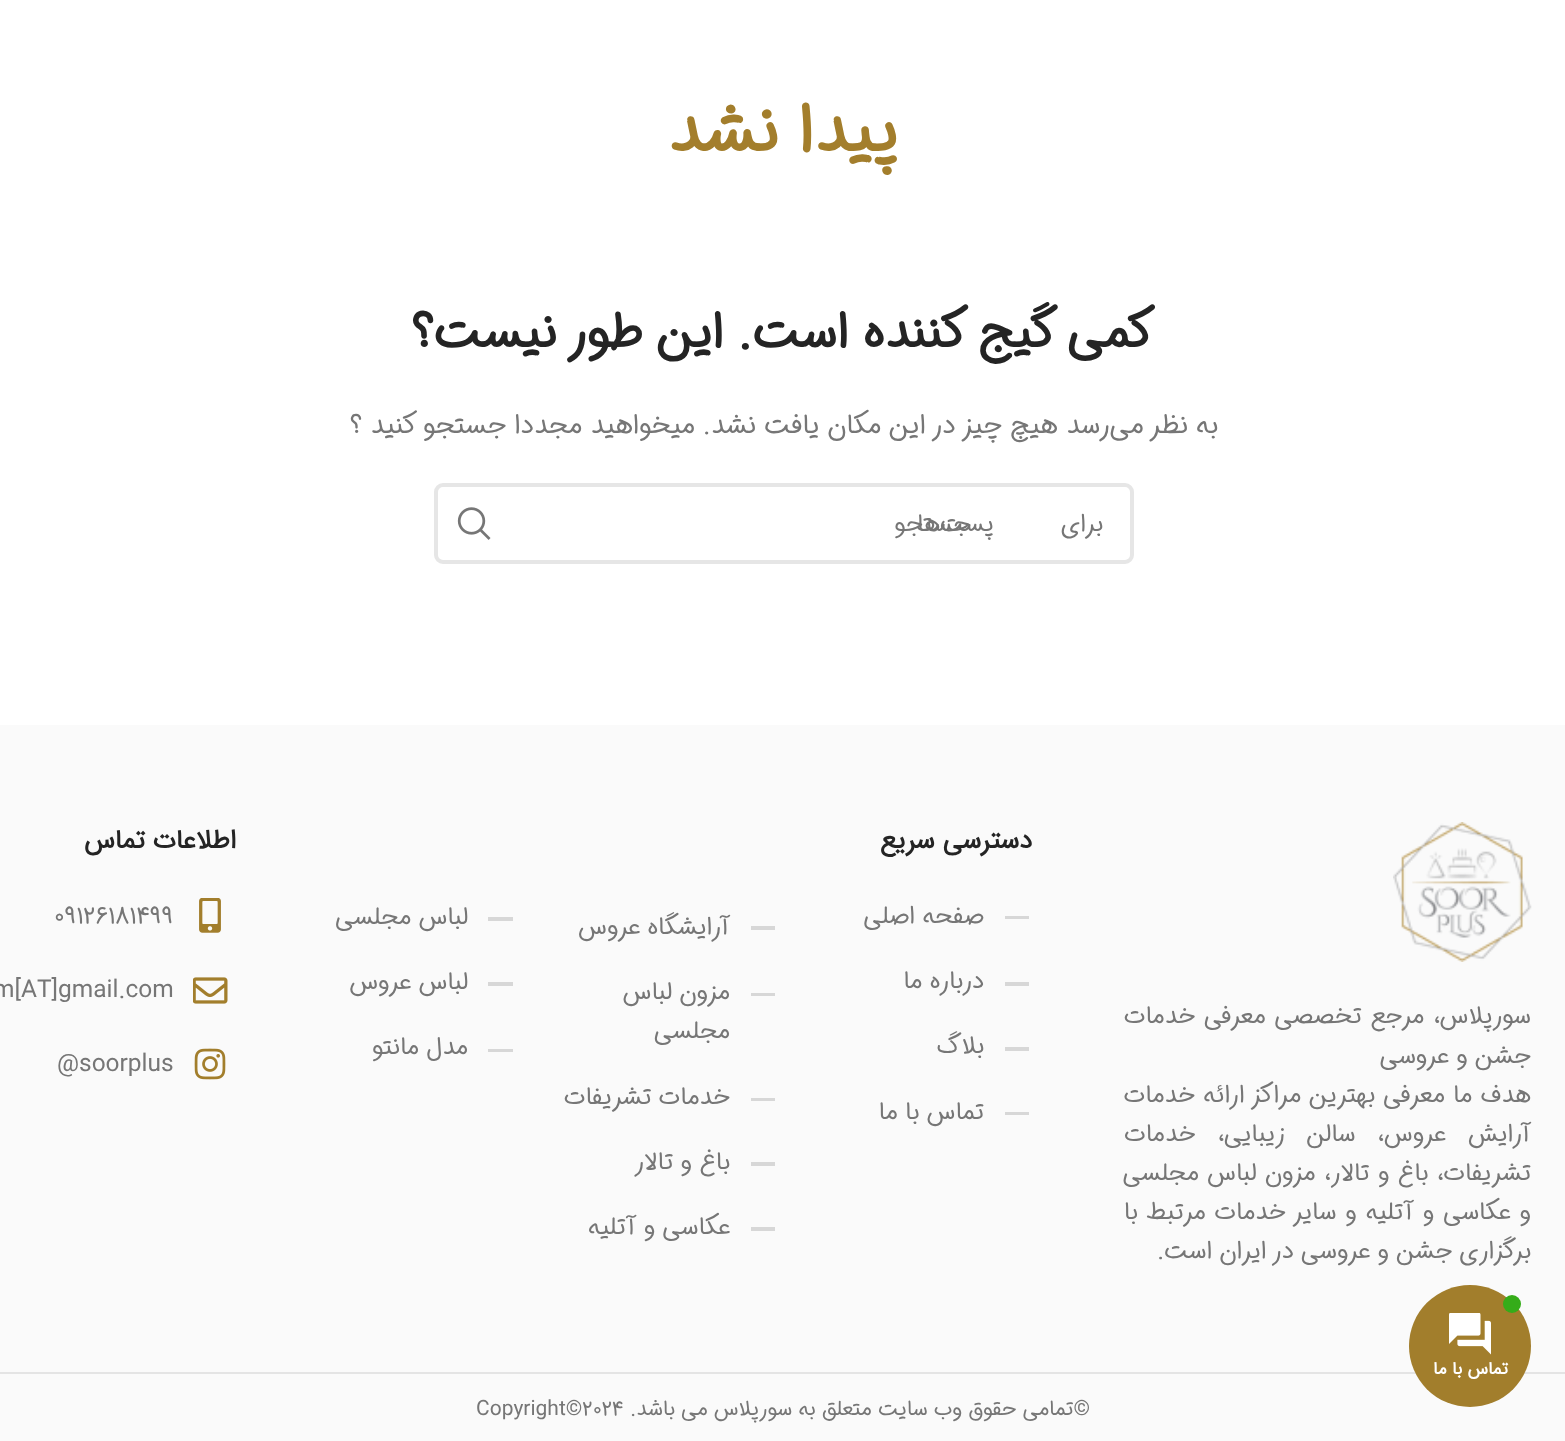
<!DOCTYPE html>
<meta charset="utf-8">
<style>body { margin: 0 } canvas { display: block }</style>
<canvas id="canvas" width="1565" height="1441"></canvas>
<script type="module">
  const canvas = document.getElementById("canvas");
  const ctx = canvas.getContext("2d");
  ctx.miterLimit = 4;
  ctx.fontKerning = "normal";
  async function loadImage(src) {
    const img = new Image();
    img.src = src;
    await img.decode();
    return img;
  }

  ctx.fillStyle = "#ffffff";
  ctx.fillRect(0, 0, 1565, 1441);
  ctx.direction = "rtl";
  ctx.font = "bold 66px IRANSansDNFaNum";
  ctx.fillStyle = "#a37e2c";
  ctx.fillText("پیدا نشد", 898, 151);
  ctx.font = "bold 49px IRANSansDNFaNum";
  ctx.fillStyle = "#242424";
  ctx.fillText("کمی گیج کننده است. این طور نیست؟", 1154, 347);
  ctx.font = "26.95px IRANSansDNFaNum";
  ctx.fillStyle = "#767676";
  ctx.fillText("به نظر می‌رسد هیچ چیز در این مکان یافت نشد. میخواهید مجددا جستجو کنید ؟", 1218, 433);
  ctx.beginPath();
  ctx.roundRect(436, 485, 696, 77, 7);
  ctx.strokeStyle = "#e6e6e6";
  ctx.lineWidth = 4;
  ctx.stroke();
  ctx.font = "24.5px IRANSansDNFaNum";
  ctx.fillText("جستجو", 970, 531);
  ctx.wordSpacing = "60px";
  ctx.fillText("برای پست‌ها", 1103, 531);
  ctx.drawImage(await loadImage("img1.png"), 457, 507, 34, 33);
  ctx.fillStyle = "#fafafa";
  ctx.fillRect(0, 725, 1565, 716);
  ctx.drawImage(await loadImage("img2.png"), 1393, 822, 139, 140);
  ctx.wordSpacing = "1.5px";
  ctx.fillStyle = "#767676";
  ctx.fillText("سورپلاس، مرجع تخصصی معرفی خدمات", 1531, 1023);
  ctx.wordSpacing = "0px";
  ctx.fillText("جشن و عروسی", 1531, 1063);
  ctx.wordSpacing = "0.75px";
  ctx.fillText("هدف ما معرفی بهترین مراکز ارائه خدمات", 1531, 1102);
  ctx.wordSpacing = "14.5px";
  ctx.fillText("آرایش عروس، سالن زیبایی، خدمات", 1531, 1141);
  ctx.wordSpacing = "1px";
  ctx.fillText("تشریفات، باغ و تالار، مزون لباس مجلسی", 1531, 1180);
  ctx.wordSpacing = "1.5px";
  ctx.fillText("و عکاسی و آتلیه و سایر خدمات مرتبط با", 1531, 1219);
  ctx.wordSpacing = "0px";
  ctx.fillText("برگزاری جشن و عروسی در ایران است.", 1531, 1258);
  ctx.font = "bold 26.25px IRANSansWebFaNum";
  ctx.fillStyle = "#242424";
  ctx.fillText("دسترسی سریع", 1032, 848);
  ctx.fillStyle = "#d7d7d7";
  ctx.fillRect(1005, 916, 24, 3);
  ctx.font = "24.5px IRANSansDNFaNum";
  ctx.fillStyle = "#767676";
  ctx.fillText("صفحه اصلی", 984, 923);
  ctx.fillStyle = "#d7d7d7";
  ctx.fillRect(1005, 982, 24, 4);
  ctx.fillStyle = "#767676";
  ctx.fillText("درباره ما", 984, 988);
  ctx.fillStyle = "#d7d7d7";
  ctx.fillRect(1005, 1047, 24, 4);
  ctx.fillStyle = "#767676";
  ctx.fillText("بلاگ", 984, 1053);
  ctx.fillStyle = "#d7d7d7";
  ctx.fillRect(1005, 1112, 24, 3);
  ctx.fillStyle = "#767676";
  ctx.fillText("تماس با ما", 984, 1119);
  ctx.fillStyle = "#d7d7d7";
  ctx.fillRect(751, 926, 24, 4);
  ctx.fillStyle = "#767676";
  ctx.fillText("آرایشگاه عروس", 730, 934);
  ctx.fillStyle = "#d7d7d7";
  ctx.fillRect(751, 993, 24, 3);
  ctx.fillStyle = "#767676";
  ctx.fillText("مزون لباس", 730, 999);
  ctx.fillText("مجلسی", 730, 1038);
  ctx.fillStyle = "#d7d7d7";
  ctx.fillRect(751, 1098, 24, 3);
  ctx.fillStyle = "#767676";
  ctx.fillText("خدمات تشریفات", 730, 1104);
  ctx.fillStyle = "#d7d7d7";
  ctx.fillRect(751, 1162, 24, 4);
  ctx.fillStyle = "#767676";
  ctx.fillText("باغ و تالار", 730, 1169);
  ctx.fillStyle = "#d7d7d7";
  ctx.fillRect(751, 1227, 24, 4);
  ctx.fillStyle = "#767676";
  ctx.fillText("عکاسی و آتلیه", 730, 1234);
  ctx.fillStyle = "#d7d7d7";
  ctx.fillRect(488, 917, 25, 4);
  ctx.fillStyle = "#767676";
  ctx.fillText("لباس مجلسی", 468, 924);
  ctx.fillStyle = "#d7d7d7";
  ctx.fillRect(488, 982, 25, 4);
  ctx.fillStyle = "#767676";
  ctx.fillText("لباس عروس", 468, 989);
  ctx.fillStyle = "#d7d7d7";
  ctx.fillRect(488, 1049, 25, 3);
  ctx.fillStyle = "#767676";
  ctx.fillText("مدل مانتو", 468, 1054);
  ctx.font = "bold 26.25px IRANSansWebFaNum";
  ctx.fillStyle = "#242424";
  ctx.fillText("اطلاعات تماس", 236, 848);
  ctx.drawImage(await loadImage("img3.png"), 199, 898, 22, 35);
  ctx.direction = "ltr";
  ctx.font = "24.5px IRANSansDNFaNum";
  ctx.fillStyle = "#767676";
  ctx.fillText("09126181499", 54, 923);
  ctx.drawImage(await loadImage("img4.png"), 193, 977, 35, 27);
  ctx.fillText("m[AT]gmail.com", -7, 997);
  ctx.drawImage(await loadImage("img5.png"), 194, 1048, 32, 32);
  ctx.fillText("@soorplus", 57, 1071);
  ctx.fillStyle = "#e4e4e4";
  ctx.fillRect(0, 1372, 1565, 2);
  ctx.direction = "rtl";
  ctx.font = "21px IRANSansDNFaNum";
  ctx.fillStyle = "#767676";
  ctx.fillText("©تمامی حقوق وب سایت متعلق به سورپلاس می باشد.", 1090, 1415);
  ctx.direction = "ltr";
  ctx.fillText("Copyright©2024", 476, 1415);
  ctx.fillStyle = "#a27e2c";
  ctx.beginPath();
  ctx.arc(1470, 1346, 61, 0, Math.PI * 2);
  ctx.fill();
  ctx.fillStyle = "#35ac19";
  ctx.beginPath();
  ctx.arc(1512, 1304, 9, 0, Math.PI * 2);
  ctx.fill();
  ctx.drawImage(await loadImage("img6.png"), 1449, 1313, 42, 42);
  ctx.direction = "rtl";
  ctx.font = "bold 17.5px IRANSansWebFaNum";
  ctx.fillStyle = "#ffffff";
  ctx.fillText("تماس با ما", 1508, 1374);
</script>
